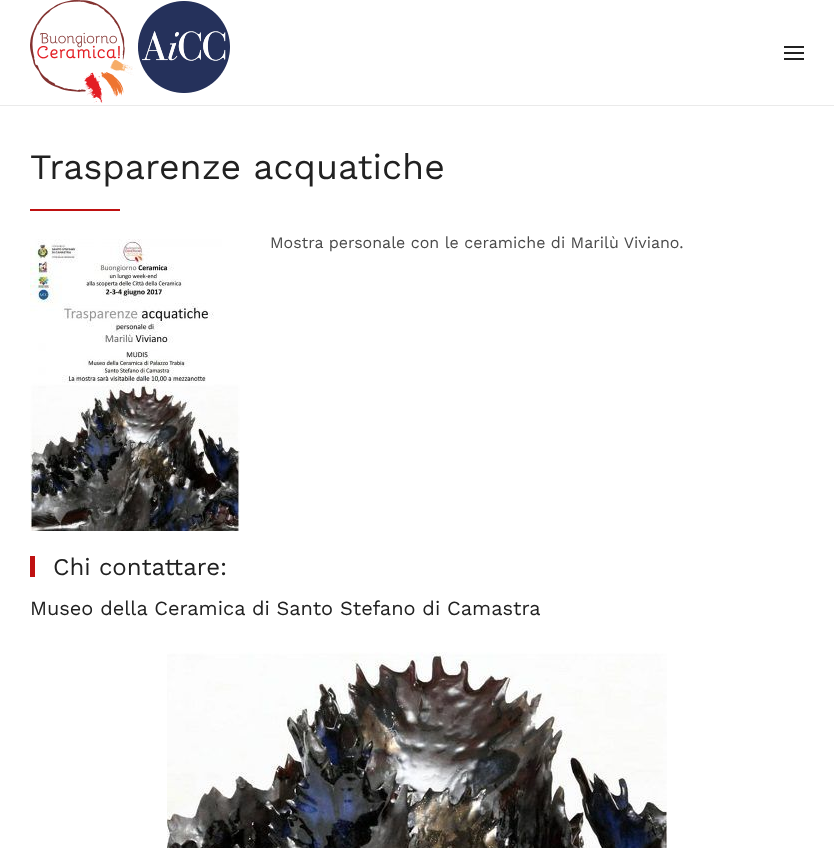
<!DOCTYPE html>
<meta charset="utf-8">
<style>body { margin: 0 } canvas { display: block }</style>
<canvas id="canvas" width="834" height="848"></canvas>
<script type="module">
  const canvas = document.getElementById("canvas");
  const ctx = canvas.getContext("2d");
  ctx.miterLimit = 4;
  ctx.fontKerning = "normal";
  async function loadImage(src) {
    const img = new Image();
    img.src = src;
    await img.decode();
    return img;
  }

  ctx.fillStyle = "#ffffff";
  ctx.fillRect(0, 0, 834, 848);
  ctx.fillStyle = "#eaeaea";
  ctx.fillRect(0, 105, 834, 1);
  ctx.drawImage(await loadImage("img1.png"), 30, 0, 200, 103);
  ctx.fillStyle = "#212121";
  ctx.fillRect(784, 46, 20, 2);
  ctx.fillRect(784, 52, 20, 2);
  ctx.fillRect(784, 58, 20, 2);
  ctx.font = "35.75px Work Sans";
  ctx.fillText("Trasparenze acquatiche", 30, 179);
  ctx.fillStyle = "#bf1111";
  ctx.fillRect(30, 209, 90, 2);
  ctx.drawImage(await loadImage("img2.png"), 30, 239, 210, 292);
  ctx.font = "16px Work Sans";
  ctx.fillStyle = "#4a4a4a";
  ctx.fillText("Mostra personale con le ceramiche di Marilù Viviano.", 270, 248);
  ctx.fillStyle = "#bf1111";
  ctx.fillRect(30, 556, 5, 21);
  ctx.font = "24px Work Sans";
  ctx.fillStyle = "#212121";
  ctx.fillText("Chi contattare:", 53, 575);
  ctx.font = "20px Work Sans";
  ctx.fillText("Museo della Ceramica di Santo Stefano di Camastra", 30, 615);
  ctx.drawImage(await loadImage("img3.png"), 167, 652, 500, 196);
</script>
